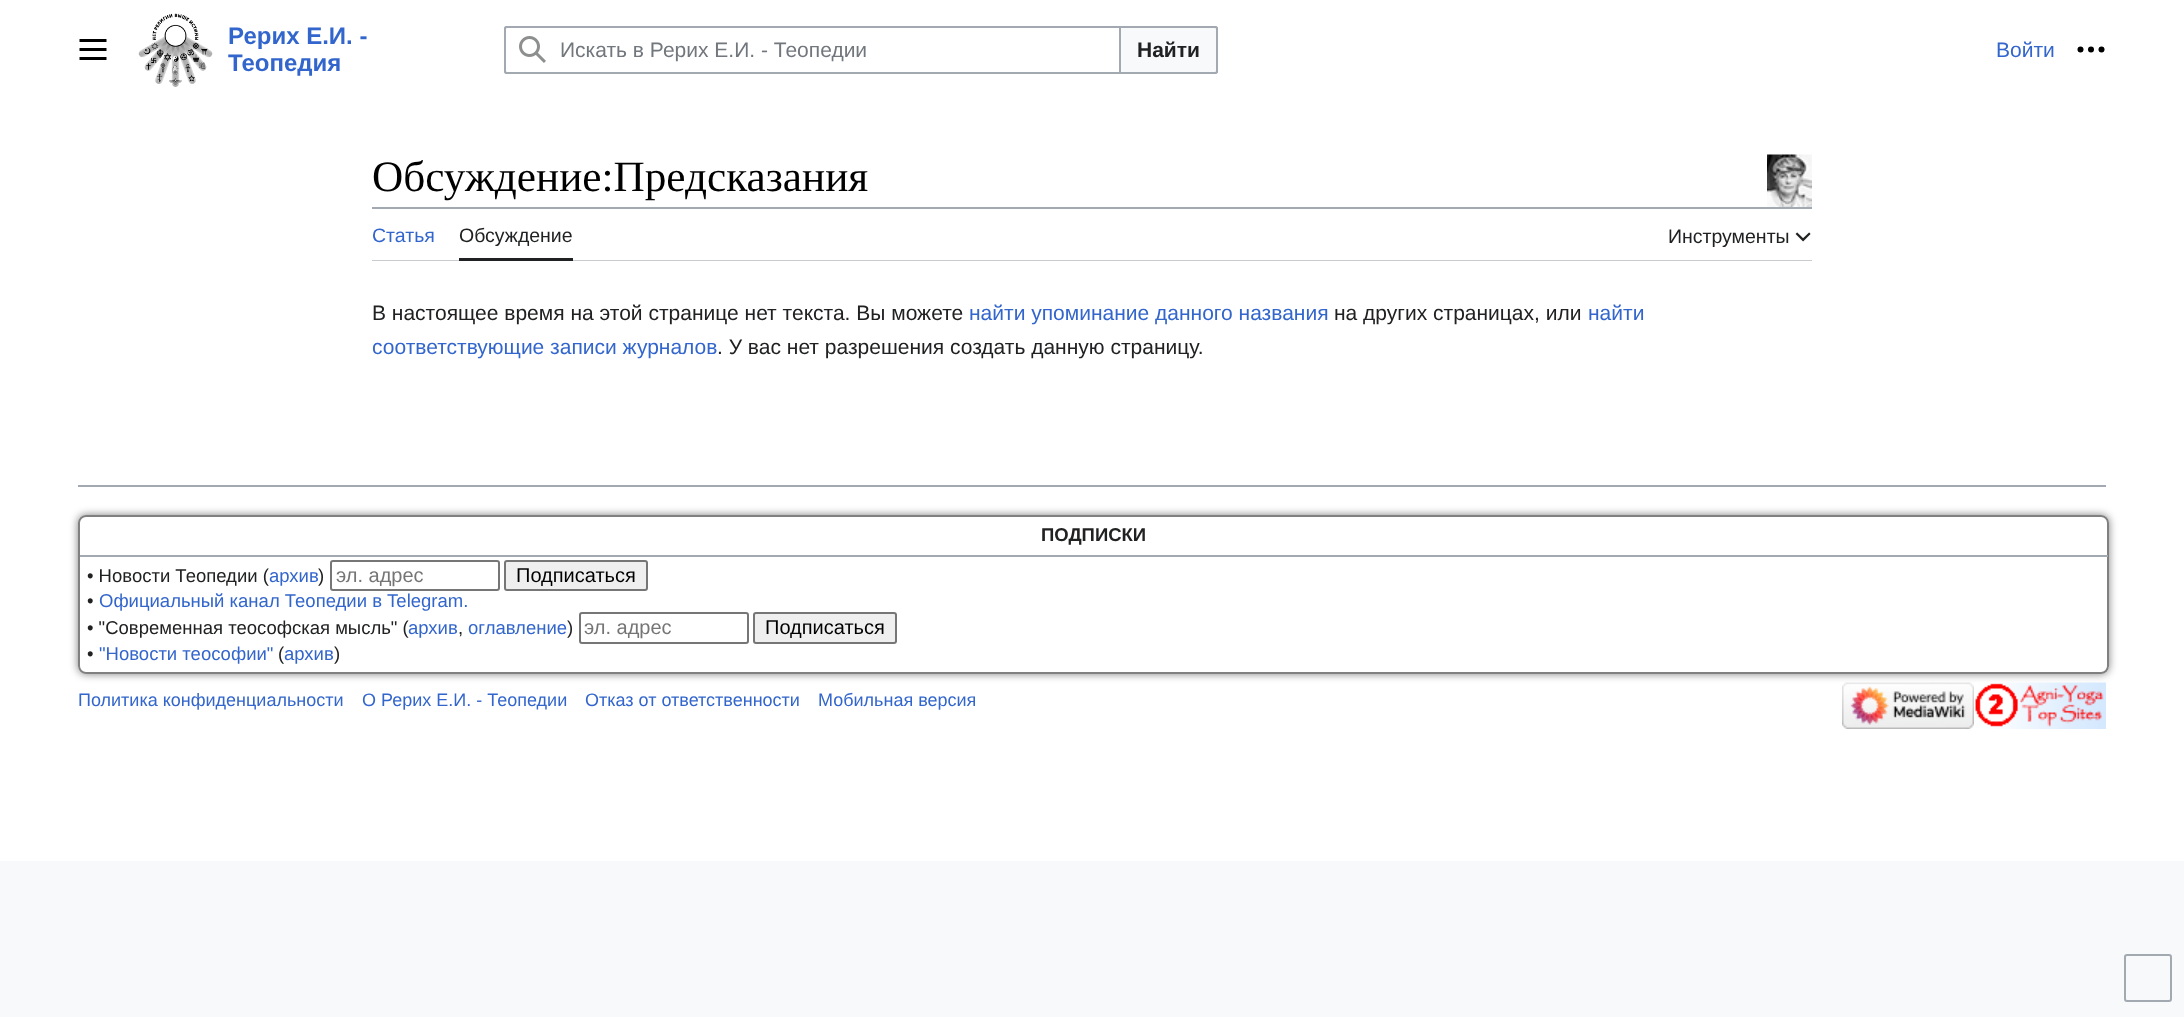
<!DOCTYPE html>
<meta charset="utf-8">
<style>body { margin: 0 } canvas { display: block }</style>
<canvas id="canvas" width="2184" height="1017"></canvas>
<script type="module">
  const canvas = document.getElementById("canvas");
  const ctx = canvas.getContext("2d");
  ctx.miterLimit = 4;
  ctx.fontKerning = "normal";
  async function loadImage(src) {
    const img = new Image();
    img.src = src;
    await img.decode();
    return img;
  }

  ctx.fillStyle = "#f8f9fa";
  ctx.fillRect(0, 0, 2184, 1017);
  ctx.fillStyle = "#ffffff";
  ctx.fillRect(0, 0, 2184, 861);
  ctx.drawImage(await loadImage("img1.png"), 79, 39, 28, 21);
  ctx.drawImage(await loadImage("img2.png"), 138, 13, 75, 74);
  ctx.font = "bold 24px Liberation Sans";
  ctx.fillStyle = "#3366cc";
  ctx.fillText("Рерих Е.И. -", 228, 44);
  ctx.fillText("Теопедия", 228, 71);
  ctx.beginPath();
  ctx.roundRect(505, 27, 712, 46, 2);
  ctx.strokeStyle = "#a2a9b1";
  ctx.lineWidth = 2;
  ctx.stroke();
  ctx.fillStyle = "#f8f9fa";
  ctx.beginPath();
  ctx.roundRect(1120, 27, 97, 46, [0, 2, 2, 0]);
  ctx.fill();
  ctx.stroke();
  ctx.fillStyle = "#ffffff";
  ctx.beginPath();
  ctx.roundRect(505, 27, 615, 46, [2, 0, 0, 2]);
  ctx.fill();
  ctx.stroke();
  ctx.drawImage(await loadImage("img3.png"), 519, 36, 27, 27);
  ctx.font = "21px Liberation Sans";
  ctx.fillStyle = "#72777d";
  ctx.fillText("Искать в Рерих Е.И. - Теопедии", 560, 57);
  ctx.font = "bold 21px Liberation Sans";
  ctx.fillStyle = "#202122";
  ctx.fillText("Найти", 1137, 57);
  ctx.font = "21px Liberation Sans";
  ctx.fillStyle = "#3366cc";
  ctx.fillText("Войти", 1996, 57);
  ctx.drawImage(await loadImage("img4.png"), 2077, 46, 28, 7);
  ctx.fillStyle = "#a2a9b1";
  ctx.fillRect(372, 207, 1440, 2);
  ctx.drawImage(await loadImage("img5.png"), 1767, 154, 45, 53);
  ctx.font = "43.25px Liberation Serif";
  ctx.fillStyle = "#000000";
  ctx.fillText("Обсуждение:Предсказания", 372, 191);
  ctx.fillStyle = "#c8ccd1";
  ctx.fillRect(372, 260, 1440, 1);
  ctx.font = "19.5px Liberation Sans";
  ctx.fillStyle = "#3366cc";
  ctx.fillText("Статья", 372, 242);
  ctx.fillStyle = "#202122";
  ctx.fillRect(459, 258, 114, 3);
  ctx.fillText("Обсуждение", 459, 242);
  ctx.fillText("Инструменты", 1668, 243);
  ctx.drawImage(await loadImage("img6.png"), 1795, 232, 16, 10);
  ctx.font = "21px Liberation Sans";
  ctx.fillText("В настоящее время на этой странице нет текста. Вы можете", 372, 320);
  ctx.fillStyle = "#3366cc";
  ctx.fillText("найти упоминание данного названия", 969, 320);
  ctx.fillStyle = "#202122";
  ctx.fillText("на других страницах, или", 1334, 320);
  ctx.fillStyle = "#3366cc";
  ctx.fillText("найти", 1588, 320);
  ctx.fillText("соответствующие записи журналов", 372, 354);
  ctx.fillStyle = "#202122";
  ctx.fillText(". У вас нет разрешения создать данную страницу.", 717, 354);
  ctx.fillStyle = "#a2a9b1";
  ctx.fillRect(78, 485, 2028, 2);
  ctx.save();
  ctx.beginPath();
  ctx.moveTo(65, 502);
  ctx.lineTo(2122, 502);
  ctx.lineTo(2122, 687);
  ctx.lineTo(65, 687);
  ctx.closePath();
  ctx.moveTo(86, 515);
  ctx.lineTo(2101, 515);
  ctx.bezierCurveTo(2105.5, 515, 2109, 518.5, 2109, 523);
  ctx.lineTo(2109, 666);
  ctx.bezierCurveTo(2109, 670.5, 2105.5, 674, 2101, 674);
  ctx.lineTo(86, 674);
  ctx.bezierCurveTo(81.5, 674, 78, 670.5, 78, 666);
  ctx.lineTo(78, 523);
  ctx.bezierCurveTo(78, 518.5, 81.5, 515, 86, 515);
  ctx.closePath();
  ctx.clip("evenodd");
  ctx.fillStyle = "rgba(0, 0, 0, 0.5)";
  ctx.filter = "blur(4px)";
  ctx.beginPath();
  ctx.roundRect(78, 515, 2031, 159, 8);
  ctx.fill();
  ctx.filter = "none";
  ctx.restore();
  ctx.beginPath();
  ctx.roundRect(79, 516, 2029, 157, 7);
  ctx.strokeStyle = "#808080";
  ctx.stroke();
  ctx.font = "bold 18.5px Liberation Sans";
  ctx.fillStyle = "#202122";
  ctx.fillText("ПОДПИСКИ", 1041, 541);
  ctx.fillStyle = "#a2a9b1";
  ctx.fillRect(80, 555, 2028, 2);
  ctx.font = "18.5px Liberation Sans";
  ctx.fillStyle = "#202122";
  ctx.fillText("• Новости Теопедии (", 87, 582);
  ctx.fillStyle = "#3366cc";
  ctx.fillText("архив", 269, 582);
  ctx.fillStyle = "#202122";
  ctx.fillText(")", 318, 582);
  ctx.beginPath();
  ctx.roundRect(331, 561, 168, 29, 2);
  ctx.strokeStyle = "#767676";
  ctx.stroke();
  ctx.font = "20px Liberation Sans";
  ctx.fillStyle = "#757575";
  ctx.fillText("эл. адрес", 336, 582);
  ctx.fillStyle = "#efefef";
  ctx.beginPath();
  ctx.roundRect(505, 561, 142, 29, 2);
  ctx.fill();
  ctx.stroke();
  ctx.fillStyle = "#000000";
  ctx.fillText("Подписаться", 516, 582);
  ctx.font = "18.5px Liberation Sans";
  ctx.fillStyle = "#202122";
  ctx.fillText("•", 87, 607);
  ctx.fillStyle = "#3366cc";
  ctx.fillText("Официальный канал Теопедии в Telegram.", 99, 607);
  ctx.fillStyle = "#202122";
  ctx.fillText("• \"Современная теософская мысль\" (", 87, 634);
  ctx.fillStyle = "#3366cc";
  ctx.fillText("архив", 408, 634);
  ctx.fillStyle = "#202122";
  ctx.fillText(",", 458, 634);
  ctx.fillStyle = "#3366cc";
  ctx.fillText("оглавление", 468, 634);
  ctx.fillStyle = "#202122";
  ctx.fillText(")", 567, 634);
  ctx.beginPath();
  ctx.roundRect(580, 613, 168, 30, 2);
  ctx.stroke();
  ctx.font = "20px Liberation Sans";
  ctx.fillStyle = "#757575";
  ctx.fillText("эл. адрес", 584, 634);
  ctx.fillStyle = "#efefef";
  ctx.beginPath();
  ctx.roundRect(754, 613, 142, 30, 2);
  ctx.fill();
  ctx.stroke();
  ctx.fillStyle = "#000000";
  ctx.fillText("Подписаться", 765, 634);
  ctx.font = "18.5px Liberation Sans";
  ctx.fillStyle = "#202122";
  ctx.fillText("•", 87, 660);
  ctx.fillStyle = "#3366cc";
  ctx.fillText("\"Новости теософии\"", 99, 660);
  ctx.fillStyle = "#202122";
  ctx.fillText("(", 278, 660);
  ctx.fillStyle = "#3366cc";
  ctx.fillText("архив", 284, 660);
  ctx.fillStyle = "#202122";
  ctx.fillText(")", 334, 660);
  ctx.font = "18px Liberation Sans";
  ctx.fillStyle = "#3366cc";
  ctx.fillText("Политика конфиденциальности", 78, 706);
  ctx.fillText("О Рерих Е.И. - Теопедии", 362, 706);
  ctx.fillText("Отказ от ответственности", 585, 706);
  ctx.fillText("Мобильная версия", 818, 706);
  ctx.drawImage(await loadImage("img7.png"), 1842, 682, 132, 47);
  ctx.drawImage(await loadImage("img8.png"), 1975, 682, 131, 47);
  ctx.beginPath();
  ctx.roundRect(2125, 955, 46, 46, 2);
  ctx.strokeStyle = "#a2a9b1";
  ctx.stroke();
</script>
